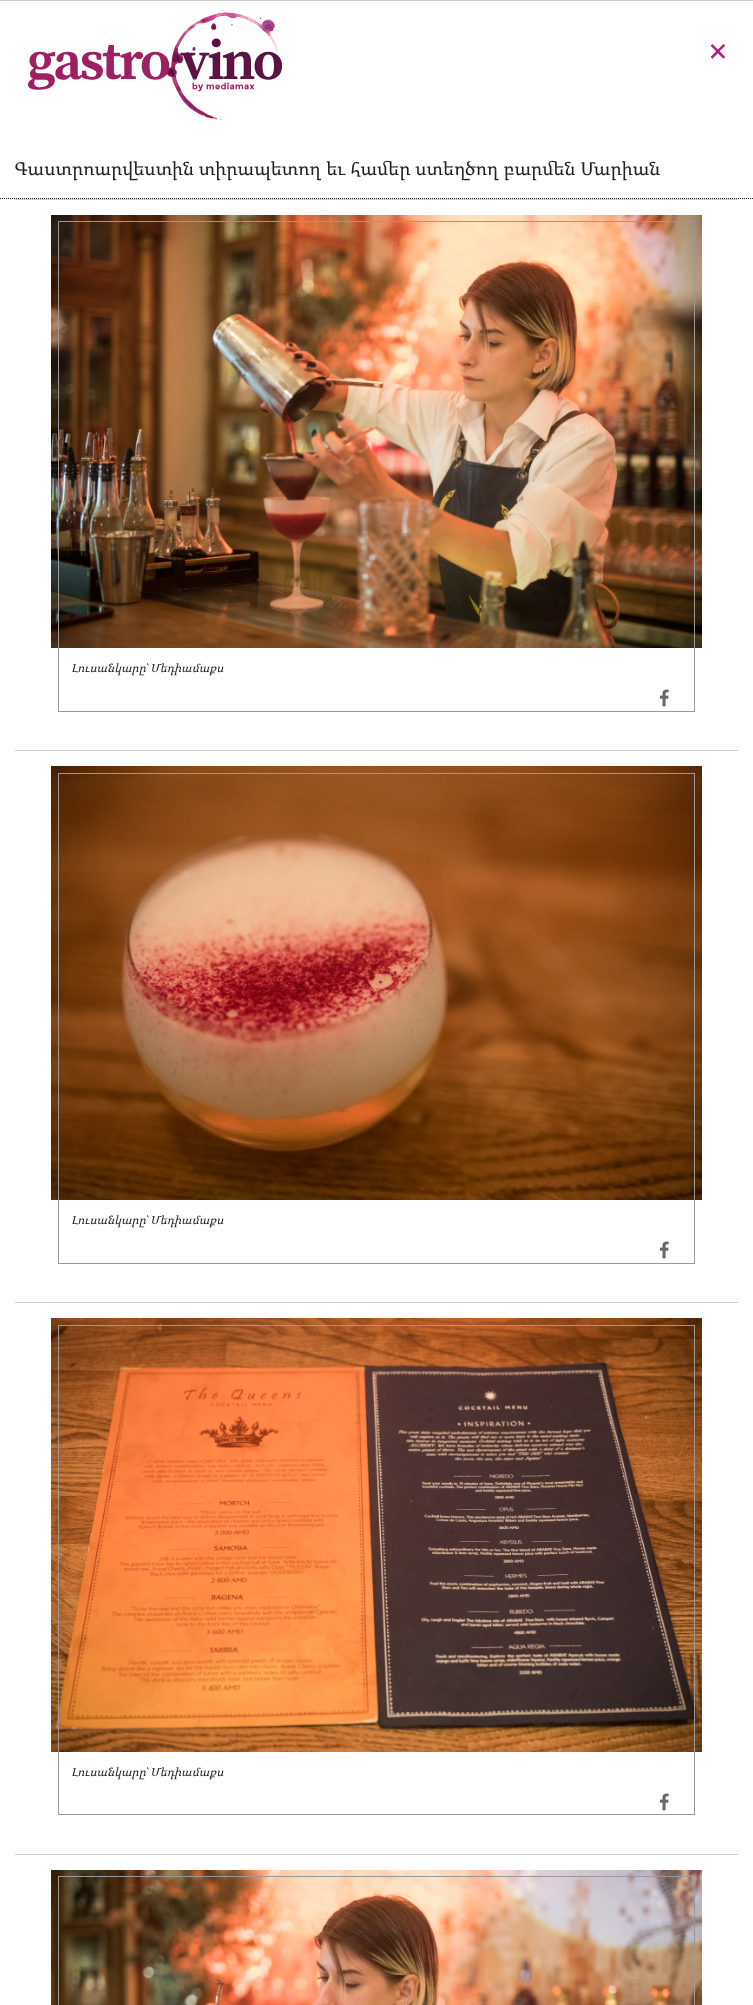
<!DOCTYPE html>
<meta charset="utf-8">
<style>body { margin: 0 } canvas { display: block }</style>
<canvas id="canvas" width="753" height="2005"></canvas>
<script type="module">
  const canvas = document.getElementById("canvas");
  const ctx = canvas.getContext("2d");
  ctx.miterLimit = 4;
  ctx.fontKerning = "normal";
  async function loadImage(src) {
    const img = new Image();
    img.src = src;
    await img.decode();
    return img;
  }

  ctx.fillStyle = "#ffffff";
  ctx.fillRect(0, 0, 753, 2005);
  ctx.fillStyle = "#cccccc";
  ctx.fillRect(0, 0, 753, 1);
  ctx.beginPath();
  ctx.moveTo(0, 198.5);
  ctx.lineTo(753, 198.5);
  ctx.strokeStyle = "#222222";
  ctx.setLineDash([1, 1]);
  ctx.stroke();
  ctx.drawImage(await loadImage("img1.png"), 28, 12, 255, 108);
  ctx.font = "bold 35px Liberation Serif";
  ctx.fillStyle = "#b21f80";
  ctx.fillText("×", 708, 63);
  ctx.font = "19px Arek";
  ctx.fillStyle = "#222222";
  ctx.fillText("Գաստրոարվեստին տիրապետող եւ համեր ստեղծող բարմեն Մարիան", 15, 175);
  ctx.fillStyle = "#cccccc";
  ctx.fillRect(15, 199, 723, 1);
  ctx.drawImage(await loadImage("img2.png"), 51, 215, 651, 433);
  ctx.strokeStyle = "#999999";
  ctx.setLineDash([]);
  ctx.strokeRect(58.5, 221.5, 636, 490);
  ctx.font = "italic 12px Arek";
  ctx.fillStyle = "#222222";
  ctx.fillText("Լուսանկարը՝ Մեդիամաքս", 71, 672);
  ctx.drawImage(await loadImage("img3.png"), 659, 689, 10, 18);
  ctx.fillStyle = "#cccccc";
  ctx.fillRect(15, 750, 723, 1);
  ctx.drawImage(await loadImage("img4.png"), 51, 766, 651, 434);
  ctx.strokeRect(58.5, 773.5, 636, 490);
  ctx.fillStyle = "#222222";
  ctx.fillText("Լուսանկարը՝ Մեդիամաքս", 71, 1224);
  ctx.drawImage(await loadImage("img3.png"), 659, 1241, 10, 18);
  ctx.fillStyle = "#cccccc";
  ctx.fillRect(15, 1302, 723, 1);
  ctx.drawImage(await loadImage("img5.png"), 51, 1318, 651, 434);
  ctx.strokeRect(58.5, 1325.5, 636, 489);
  ctx.fillStyle = "#222222";
  ctx.fillText("Լուսանկարը՝ Մեդիամաքս", 71, 1776);
  ctx.drawImage(await loadImage("img3.png"), 659, 1793, 10, 18);
  ctx.fillStyle = "#cccccc";
  ctx.fillRect(15, 1854, 723, 1);
  ctx.drawImage(await loadImage("img6.png"), 51, 1870, 651, 135);
  ctx.strokeRect(58.5, 1876.5, 636, 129);
</script>
